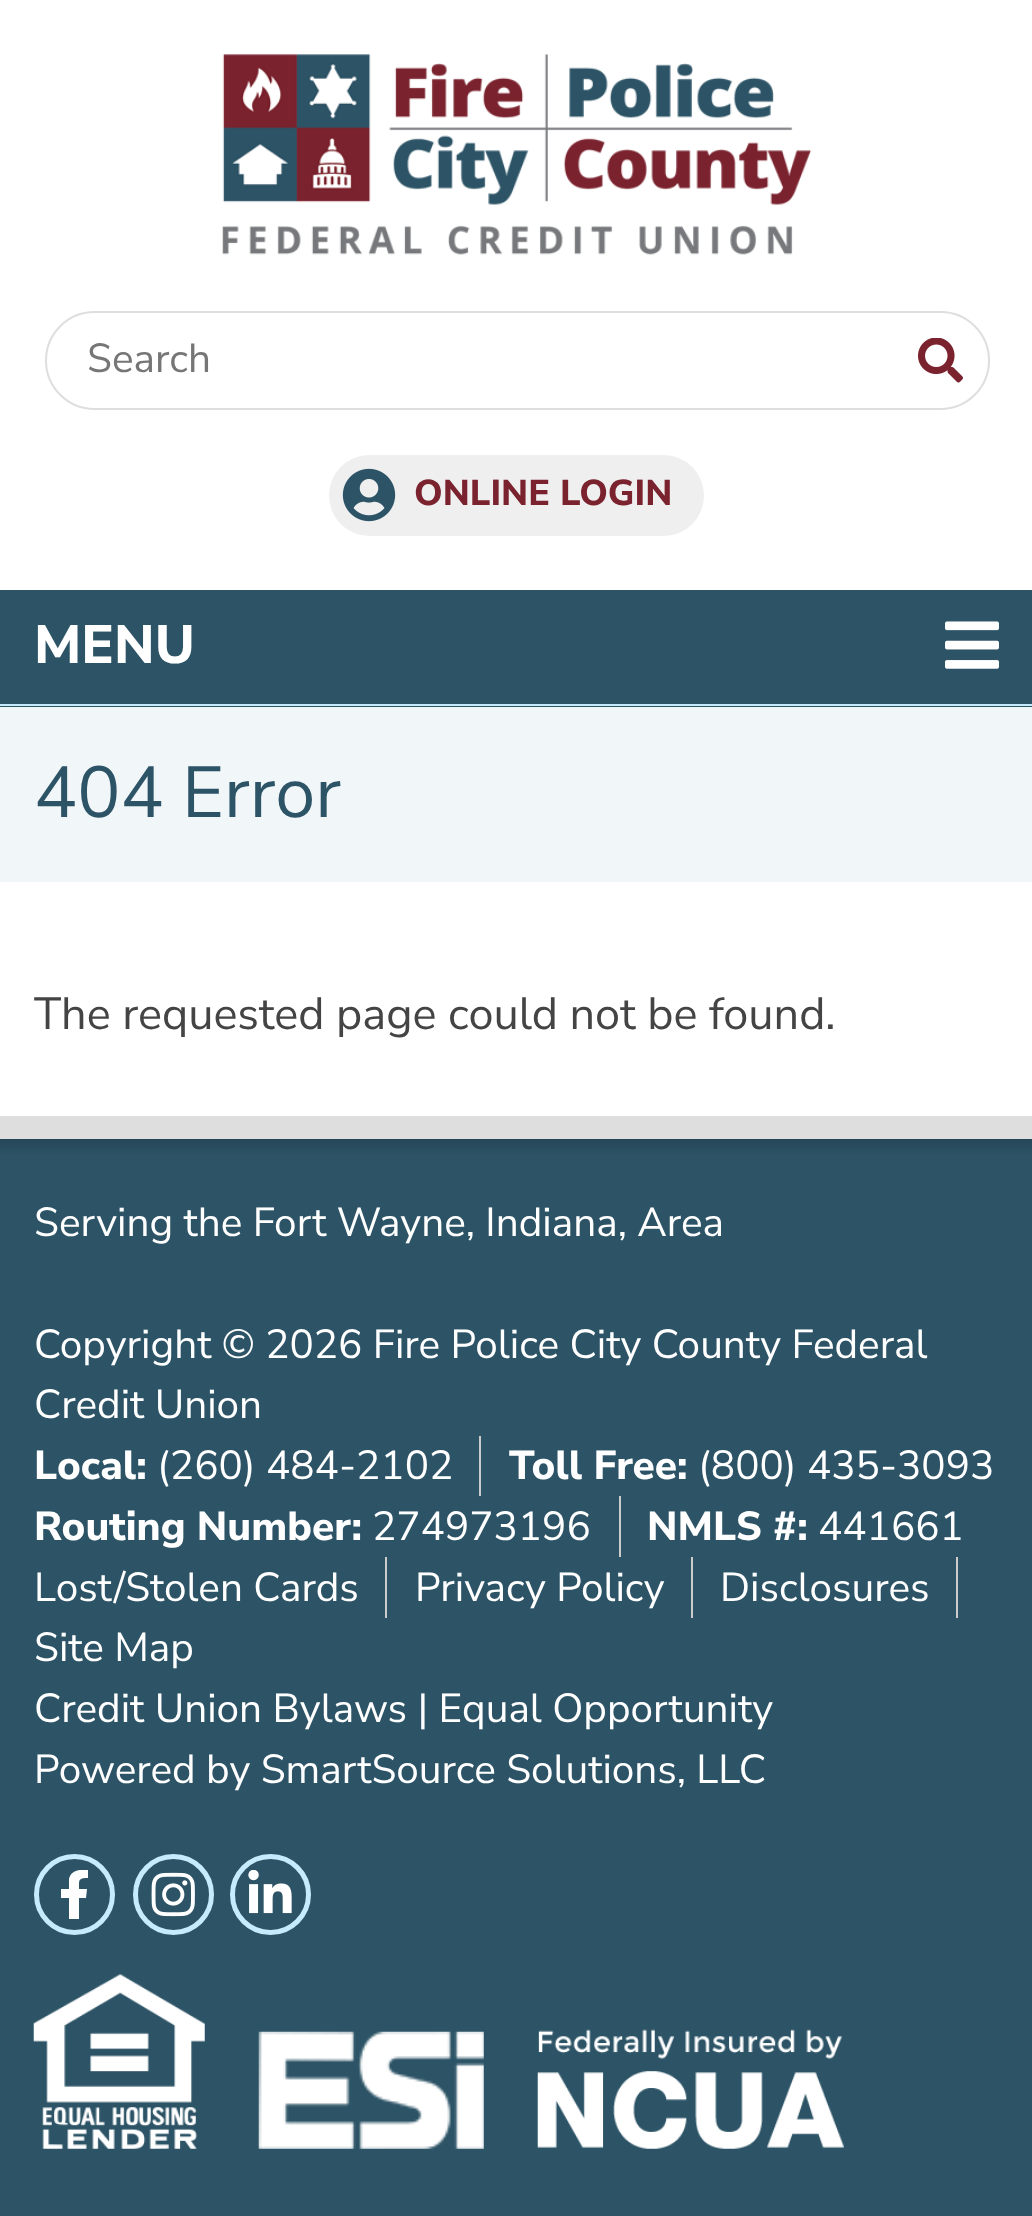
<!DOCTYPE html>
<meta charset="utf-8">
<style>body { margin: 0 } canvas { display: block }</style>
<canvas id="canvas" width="1032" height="2216"></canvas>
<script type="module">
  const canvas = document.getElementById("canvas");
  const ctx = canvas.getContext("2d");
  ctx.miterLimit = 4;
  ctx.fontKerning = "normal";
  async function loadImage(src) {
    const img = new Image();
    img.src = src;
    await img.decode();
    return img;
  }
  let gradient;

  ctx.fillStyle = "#ffffff";
  ctx.fillRect(0, 0, 1032, 2216);
  ctx.drawImage(await loadImage("img1.png"), 222, 54, 590, 201);
  ctx.beginPath();
  ctx.roundRect(46, 312, 943, 97, 48.5);
  ctx.strokeStyle = "#dededf";
  ctx.lineWidth = 2;
  ctx.stroke();
  ctx.font = "40.5px Nunito Sans";
  ctx.fillStyle = "#767676";
  ctx.fillText("Search", 87, 372);
  ctx.drawImage(await loadImage("img2.png"), 918, 338, 45, 45);
  ctx.fillStyle = "#efefef";
  ctx.beginPath();
  ctx.roundRect(329, 455, 375, 81, 40.5);
  ctx.fill();
  ctx.drawImage(await loadImage("img3.png"), 342, 468, 54, 54);
  ctx.font = "800 36px Nunito Sans";
  ctx.fillStyle = "#7a222e";
  ctx.fillText("ONLINE LOGIN", 414, 505);
  ctx.fillStyle = "#2d5466";
  ctx.fillRect(0, 590, 1032, 117);
  ctx.fillStyle = "#c5ebfc";
  ctx.fillRect(0, 704, 1032, 2);
  ctx.font = "800 54px Nunito Sans";
  ctx.fillStyle = "#ffffff";
  ctx.fillText("MENU", 34, 663);
  ctx.drawImage(await loadImage("img4.png"), 945, 621, 54, 48);
  ctx.fillStyle = "#f1f6f9";
  ctx.fillRect(0, 707, 1032, 175);
  ctx.font = "72px Nunito Sans";
  ctx.fillStyle = "#2d5466";
  ctx.fillText("404 Error", 34, 817);
  ctx.font = "45px Nunito Sans";
  ctx.fillStyle = "#444444";
  ctx.fillText("The requested page could not be found.", 34, 1029);
  ctx.fillStyle = "#2d5466";
  ctx.fillRect(0, 1157, 1032, 1059);
  ctx.fillStyle = "#dededf";
  ctx.fillRect(0, 1116, 1032, 23);
  gradient = ctx.createLinearGradient(516, 1157, 516, 1139);
  gradient.addColorStop(0, "#2d5466");
  gradient.addColorStop(1, "#264757");
  ctx.fillStyle = gradient;
  ctx.fillRect(0, 1139, 1032, 18);
  ctx.font = "40.5px Nunito Sans";
  ctx.fillStyle = "#ffffff";
  ctx.fillText("Serving the Fort Wayne, Indiana, Area", 34, 1236);
  ctx.fillText("Copyright © 2026 Fire Police City County Federal", 34, 1358);
  ctx.fillText("Credit Union", 34, 1418);
  ctx.fillStyle = "#cccccc";
  ctx.fillRect(479, 1436, 2, 60);
  ctx.font = "800 40.5px Nunito Sans";
  ctx.fillStyle = "#ffffff";
  ctx.fillText("Local:", 34, 1479);
  ctx.font = "40.5px Nunito Sans";
  ctx.fillText("(260) 484-2102", 157, 1479);
  ctx.font = "800 40.5px Nunito Sans";
  ctx.fillText("Toll Free:", 509, 1479);
  ctx.font = "40.5px Nunito Sans";
  ctx.fillText("(800) 435-3093", 698, 1479);
  ctx.fillStyle = "#cccccc";
  ctx.fillRect(619, 1496, 2, 61);
  ctx.font = "800 40.5px Nunito Sans";
  ctx.fillStyle = "#ffffff";
  ctx.fillText("Routing Number:", 34, 1540);
  ctx.font = "40.5px Nunito Sans";
  ctx.fillText("274973196", 372, 1540);
  ctx.font = "800 40.5px Nunito Sans";
  ctx.fillText("NMLS #:", 647, 1540);
  ctx.font = "40.5px Nunito Sans";
  ctx.fillText("441661", 818, 1540);
  ctx.fillStyle = "#cccccc";
  ctx.fillRect(385, 1557, 2, 61);
  ctx.fillStyle = "#ffffff";
  ctx.fillText("Lost/Stolen Cards", 34, 1601);
  ctx.fillStyle = "#cccccc";
  ctx.fillRect(691, 1557, 2, 61);
  ctx.fillStyle = "#ffffff";
  ctx.fillText("Privacy Policy", 415, 1601);
  ctx.fillStyle = "#cccccc";
  ctx.fillRect(956, 1557, 2, 61);
  ctx.fillStyle = "#ffffff";
  ctx.fillText("Disclosures", 720, 1601);
  ctx.fillText("Site Map", 34, 1661);
  ctx.fillText("Credit Union Bylaws | Equal Opportunity", 34, 1722);
  ctx.fillText("Powered by SmartSource Solutions, LLC", 34, 1783);
  ctx.beginPath();
  ctx.arc(74.5, 1894.5, 38, 0, Math.PI * 2);
  ctx.strokeStyle = "#c5ebfc";
  ctx.lineWidth = 5;
  ctx.stroke();
  ctx.save();
  ctx.beginPath();
  ctx.rect(50, 1870, 49, 49);
  ctx.clip();
  ctx.beginPath();
  ctx.moveTo(86, 1898);
  ctx.lineTo(87, 1889);
  ctx.lineTo(79, 1889);
  ctx.bezierCurveTo(79, 1880, 78, 1878, 88, 1878);
  ctx.lineTo(88, 1870);
  ctx.bezierCurveTo(80, 1869, 71, 1870, 69, 1879);
  ctx.lineTo(69, 1889);
  ctx.lineTo(61, 1889);
  ctx.lineTo(61, 1898);
  ctx.lineTo(69, 1898);
  ctx.lineTo(69, 1919);
  ctx.lineTo(79, 1919);
  ctx.lineTo(79, 1898);
  ctx.closePath();
  ctx.fill();
  ctx.restore();
  ctx.beginPath();
  ctx.arc(173.5, 1894.5, 38, 0, Math.PI * 2);
  ctx.stroke();
  ctx.drawImage(await loadImage("img5.png"), 151, 1872, 44, 45);
  ctx.beginPath();
  ctx.arc(270.5, 1894.5, 38, 0, Math.PI * 2);
  ctx.stroke();
  ctx.drawImage(await loadImage("img6.png"), 248, 1870, 44, 44);
  ctx.drawImage(await loadImage("img7.png"), 33, 1974, 172, 175);
  ctx.drawImage(await loadImage("img8.png"), 258, 2031, 226, 118);
  ctx.drawImage(await loadImage("img9.png"), 537, 2029, 307, 120);
</script>
